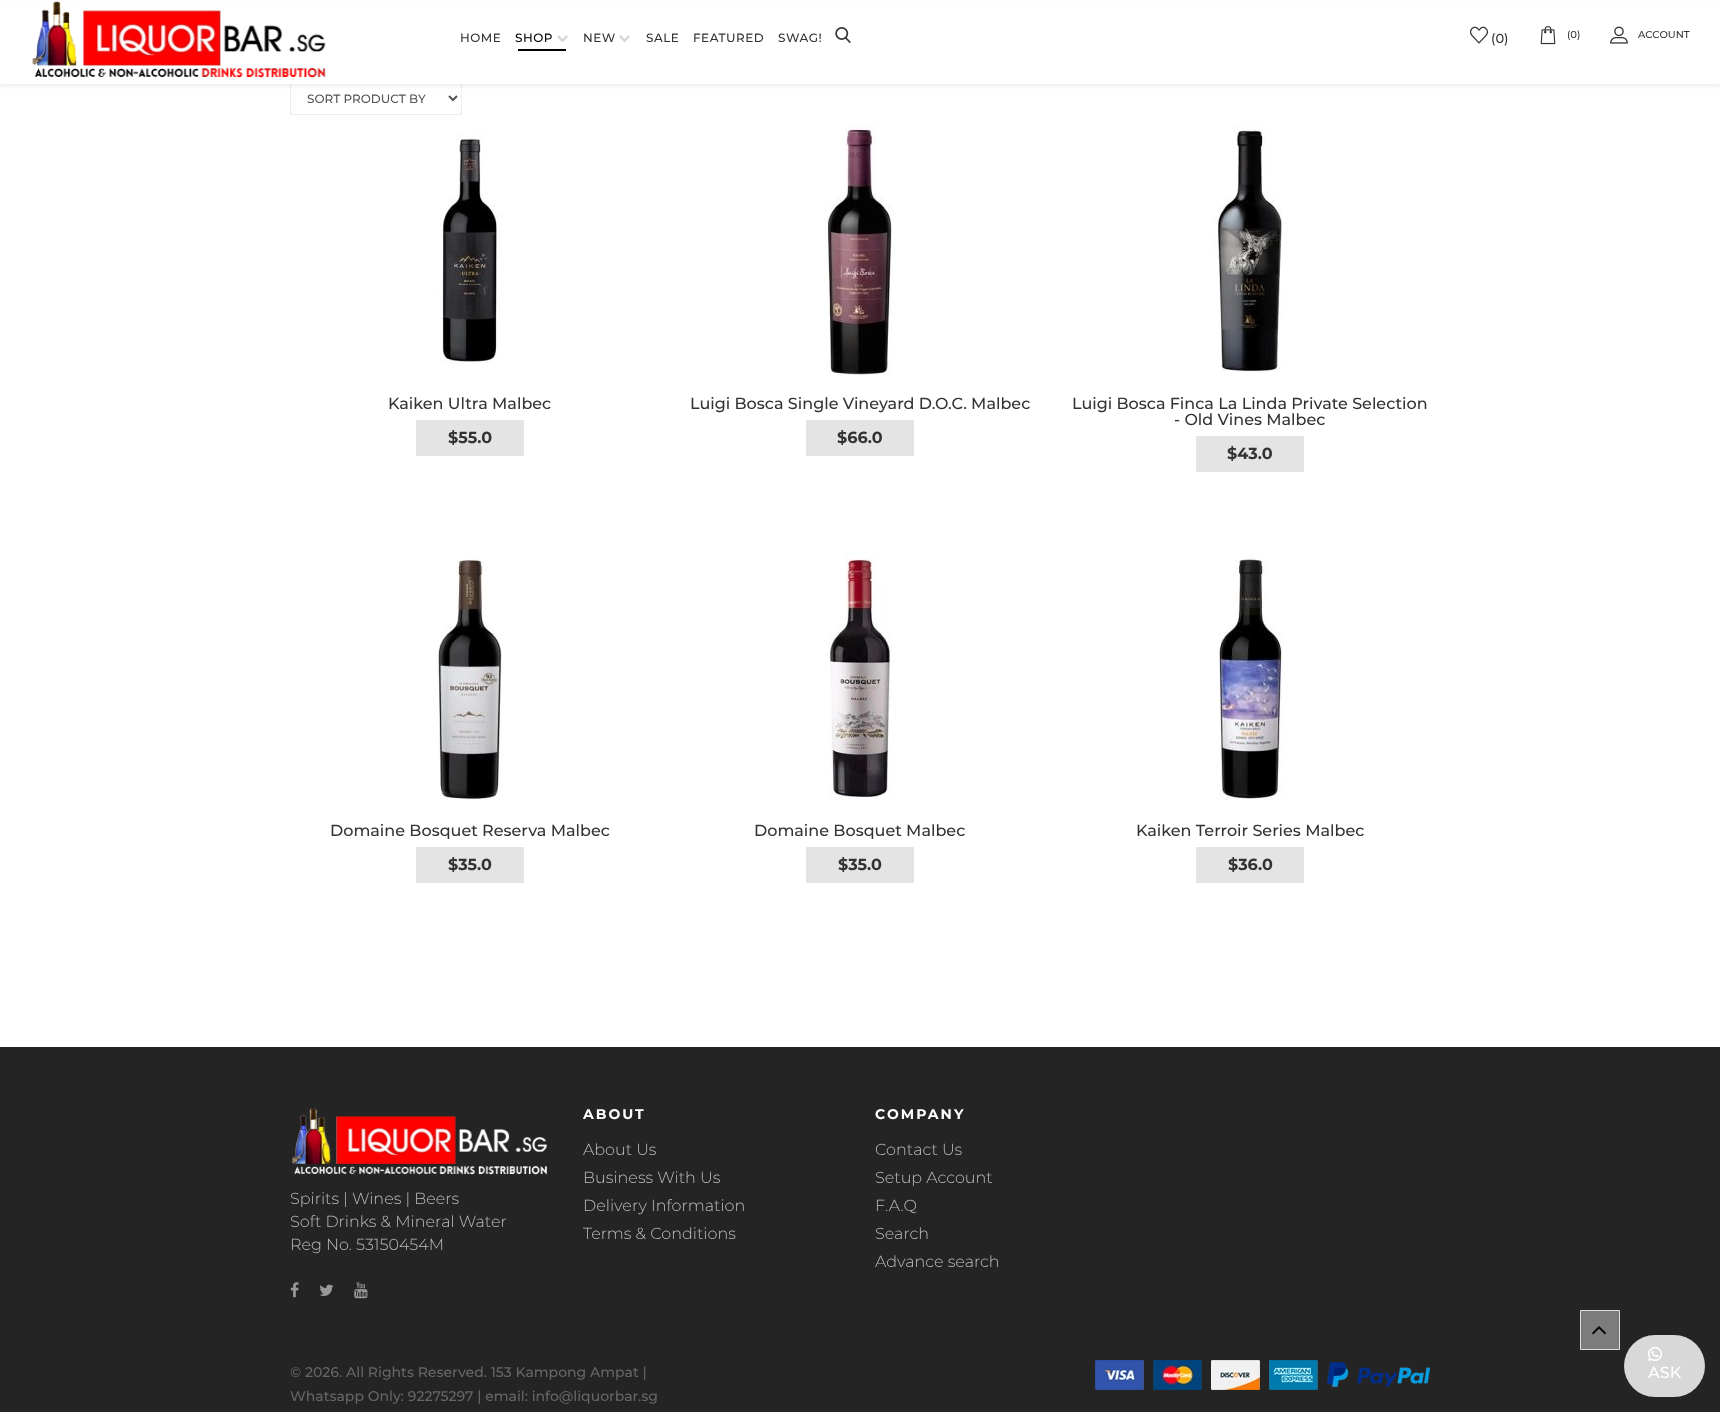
<!DOCTYPE html>
<meta charset="utf-8">
<style>body { margin: 0 } canvas { display: block }</style>
<canvas id="canvas" width="1720" height="1412"></canvas>
<script type="module">
  const canvas = document.getElementById("canvas");
  const ctx = canvas.getContext("2d");
  ctx.miterLimit = 4;
  ctx.fontKerning = "normal";
  async function loadImage(src) {
    const img = new Image();
    img.src = src;
    await img.decode();
    return img;
  }

  ctx.fillStyle = "#ffffff";
  ctx.fillRect(0, 0, 1720, 1412);
  ctx.strokeStyle = "#eeeeee";
  ctx.strokeRect(290.5, 81.5, 171, 33);
  ctx.fillStyle = "rgba(0, 0, 0, 0.05)";
  ctx.filter = "blur(1.5px)";
  ctx.beginPath();
  ctx.rect(0, 3, 1720, 84);
  ctx.fill();
  ctx.filter = "none";
  ctx.fillStyle = "#ffffff";
  ctx.fillRect(0, 2, 1720, 82);
  ctx.drawImage(await loadImage("img1.png"), 32, 1, 294, 77);
  ctx.letterSpacing = "0.5px";
  ctx.font = "500 12px Montserrat";
  ctx.fillStyle = "#333333";
  ctx.fillText("HOME", 460, 42);
  ctx.fillStyle = "#000000";
  ctx.fillText("SHOP", 515, 42);
  ctx.drawImage(await loadImage("img2.png"), 557, 35, 11, 8);
  ctx.fillRect(518, 49, 48, 2);
  ctx.fillStyle = "#333333";
  ctx.fillText("NEW", 583, 42);
  ctx.drawImage(await loadImage("img2.png"), 619, 35, 11, 8);
  ctx.fillText("SALE", 646, 42);
  ctx.fillText("FEATURED", 693, 42);
  ctx.fillText("SWAG!", 778, 42);
  ctx.drawImage(await loadImage("img3.png"), 835, 27, 16, 16);
  ctx.drawImage(await loadImage("img4.png"), 1470, 26, 18, 18);
  ctx.letterSpacing = "0px";
  ctx.font = "500 13px Montserrat";
  ctx.fillText("(0)", 1491, 43);
  ctx.drawImage(await loadImage("img5.png"), 1540, 26, 16, 19);
  ctx.font = "500 10px Montserrat";
  ctx.fillText("(0)", 1567, 38);
  ctx.drawImage(await loadImage("img6.png"), 1610, 26, 18, 18);
  ctx.fillText("ACCOUNT", 1638, 38);
  ctx.beginPath();
  ctx.moveTo(449, 96);
  ctx.lineTo(453, 100);
  ctx.lineTo(457, 96);
  ctx.strokeStyle = "#555555";
  ctx.lineWidth = 2;
  ctx.stroke();
  ctx.font = "500 12px Montserrat";
  ctx.fillStyle = "#555555";
  ctx.fillText("SORT PRODUCT BY", 307, 103);
  ctx.drawImage(await loadImage("img7.png"), 439, 133, 64, 232);
  ctx.font = "500 16px Montserrat";
  ctx.fillStyle = "#333333";
  ctx.fillText("Kaiken Ultra Malbec", 388, 409);
  ctx.fillStyle = "#e4e4e4";
  ctx.fillRect(416, 420, 108, 36);
  ctx.font = "bold 16px Montserrat";
  ctx.fillStyle = "#333333";
  ctx.fillText("$55.0", 448, 443);
  ctx.drawImage(await loadImage("img8.png"), 825, 125, 68, 251);
  ctx.font = "500 16px Montserrat";
  ctx.fillText("Luigi Bosca Single Vineyard D.O.C. Malbec", 690, 409);
  ctx.fillStyle = "#e4e4e4";
  ctx.fillRect(806, 420, 108, 36);
  ctx.font = "bold 16px Montserrat";
  ctx.fillStyle = "#333333";
  ctx.fillText("$66.0", 837, 443);
  ctx.drawImage(await loadImage("img9.png"), 1212, 125, 71, 248);
  ctx.font = "500 16px Montserrat";
  ctx.fillText("Luigi Bosca Finca La Linda Private Selection", 1072, 409);
  ctx.fillText("- Old Vines Malbec", 1174, 425);
  ctx.fillStyle = "#e4e4e4";
  ctx.fillRect(1196, 436, 108, 36);
  ctx.font = "bold 16px Montserrat";
  ctx.fillStyle = "#333333";
  ctx.fillText("$43.0", 1227, 459);
  ctx.drawImage(await loadImage("img10.png"), 436, 558, 67, 242);
  ctx.font = "500 16px Montserrat";
  ctx.fillText("Domaine Bosquet Reserva Malbec", 330, 836);
  ctx.fillStyle = "#e4e4e4";
  ctx.fillRect(416, 847, 108, 36);
  ctx.font = "bold 16px Montserrat";
  ctx.fillStyle = "#333333";
  ctx.fillText("$35.0", 448, 870);
  ctx.drawImage(await loadImage("img11.png"), 829, 552, 64, 248);
  ctx.font = "500 16px Montserrat";
  ctx.fillText("Domaine Bosquet Malbec", 754, 836);
  ctx.fillStyle = "#e4e4e4";
  ctx.fillRect(806, 847, 108, 36);
  ctx.font = "bold 16px Montserrat";
  ctx.fillStyle = "#333333";
  ctx.fillText("$35.0", 838, 870);
  ctx.drawImage(await loadImage("img12.png"), 1219, 553, 64, 247);
  ctx.font = "500 16px Montserrat";
  ctx.fillText("Kaiken Terroir Series Malbec", 1136, 836);
  ctx.fillStyle = "#e4e4e4";
  ctx.fillRect(1196, 847, 108, 36);
  ctx.font = "bold 16px Montserrat";
  ctx.fillStyle = "#333333";
  ctx.fillText("$36.0", 1228, 870);
  ctx.fillStyle = "#242424";
  ctx.fillRect(0, 1047, 1720, 365);
  ctx.drawImage(await loadImage("img13.png"), 292, 1108, 255, 67);
  ctx.font = "300 16px Montserrat";
  ctx.fillStyle = "#bdbdbd";
  ctx.fillText("Spirits | Wines | Beers", 290, 1204);
  ctx.fillText("Soft Drinks & Mineral Water", 290, 1227);
  ctx.fillText("Reg No. 53150454M", 290, 1250);
  ctx.drawImage(await loadImage("img14.png"), 290, 1282, 9, 16);
  ctx.drawImage(await loadImage("img15.png"), 319, 1284, 15, 12);
  ctx.drawImage(await loadImage("img16.png"), 354, 1282, 14, 17);
  ctx.letterSpacing = "2px";
  ctx.font = "bold 14px Montserrat";
  ctx.fillStyle = "#ffffff";
  ctx.fillText("ABOUT", 583, 1119);
  ctx.letterSpacing = "0px";
  ctx.font = "300 16px Montserrat";
  ctx.fillStyle = "#bdbdbd";
  ctx.fillText("About Us", 583, 1155);
  ctx.fillText("Business With Us", 583, 1183);
  ctx.fillText("Delivery Information", 583, 1211);
  ctx.fillText("Terms & Conditions", 583, 1239);
  ctx.letterSpacing = "2px";
  ctx.font = "bold 14px Montserrat";
  ctx.fillStyle = "#ffffff";
  ctx.fillText("COMPANY", 875, 1119);
  ctx.letterSpacing = "0px";
  ctx.font = "300 16px Montserrat";
  ctx.fillStyle = "#bdbdbd";
  ctx.fillText("Contact Us", 875, 1155);
  ctx.fillText("Setup Account", 875, 1183);
  ctx.fillText("F.A.Q", 875, 1211);
  ctx.fillText("Search", 875, 1239);
  ctx.fillText("Advance search", 875, 1267);
  ctx.font = "500 14px Montserrat";
  ctx.fillStyle = "#666666";
  ctx.fillText("© 2026. All Rights Reserved. 153 Kampong Ampat |", 290, 1377);
  ctx.fillText("Whatsapp Only: 92275297 | email: info@liquorbar.sg", 290, 1401);
  ctx.drawImage(await loadImage("img17.png"), 1095, 1360, 335, 30);
  ctx.fillStyle = "#7c7c7c";
  ctx.beginPath();
  ctx.rect(1580.5, 1310.5, 39, 39);
  ctx.fill();
  ctx.strokeStyle = "#dddddd";
  ctx.lineWidth = 1;
  ctx.stroke();
  ctx.drawImage(await loadImage("img18.png"), 1592, 1326, 14, 9);
  ctx.fillStyle = "#d8d8d8";
  ctx.beginPath();
  ctx.roundRect(1624, 1335, 81, 62, 31);
  ctx.fill();
  ctx.drawImage(await loadImage("img19.png"), 1648, 1347, 14, 14);
  ctx.font = "500 16px Montserrat";
  ctx.fillStyle = "#ffffff";
  ctx.fillText("ASK", 1648, 1378);
</script>
